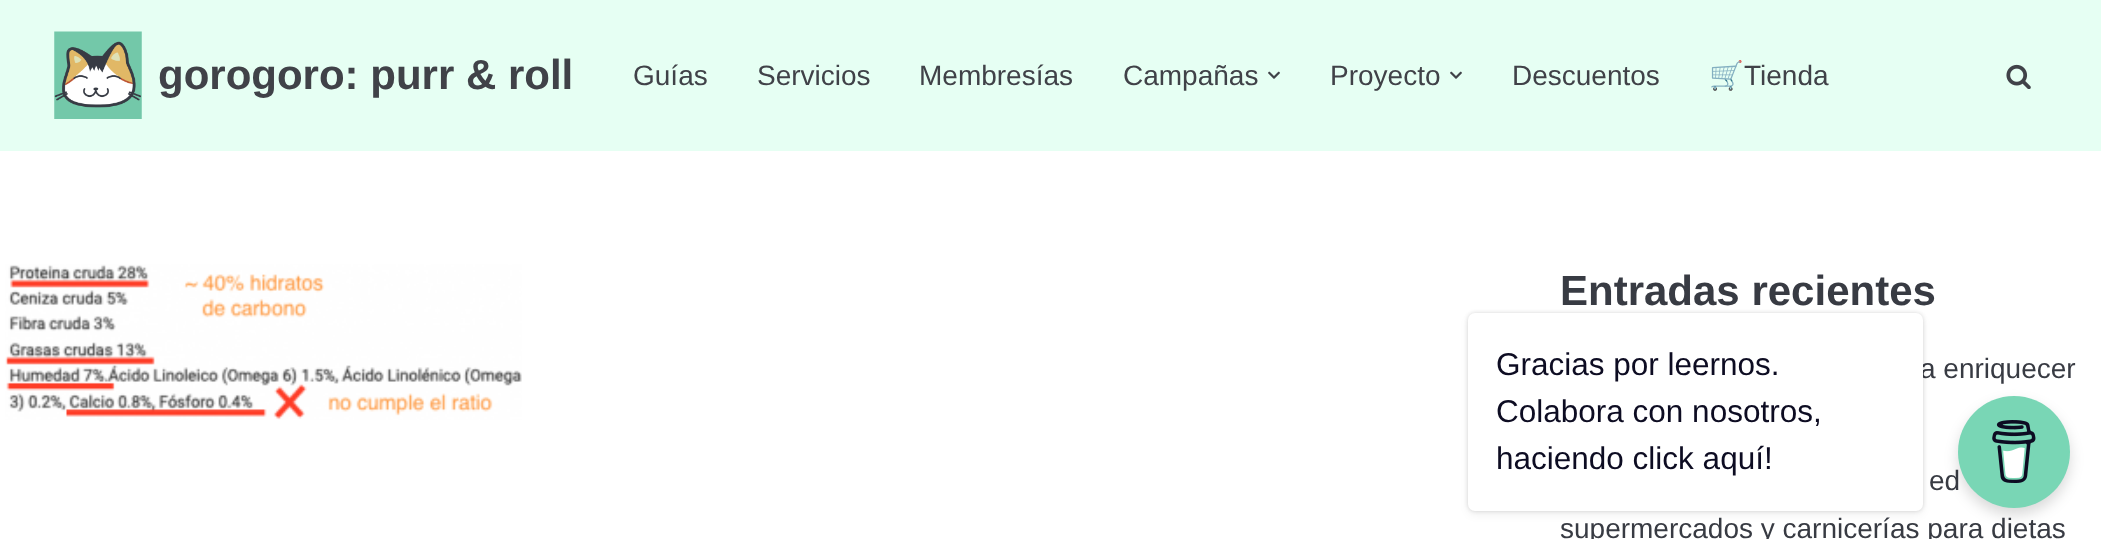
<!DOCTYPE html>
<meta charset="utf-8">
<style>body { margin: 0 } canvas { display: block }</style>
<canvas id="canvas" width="2101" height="539"></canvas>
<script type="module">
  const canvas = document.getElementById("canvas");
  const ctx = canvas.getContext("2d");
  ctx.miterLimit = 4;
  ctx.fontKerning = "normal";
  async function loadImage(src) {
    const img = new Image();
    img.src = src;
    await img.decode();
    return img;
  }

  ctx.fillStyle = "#ffffff";
  ctx.fillRect(0, 0, 2101, 539);
  ctx.fillStyle = "#e6fff3";
  ctx.fillRect(0, 0, 2101, 151);
  ctx.drawImage(await loadImage("img1.png"), 54, 31, 88, 88);
  ctx.font = "bold 42px Liberation Sans";
  ctx.fillStyle = "#404248";
  ctx.fillText("gorogoro: purr & roll", 158, 89);
  ctx.font = "28px Liberation Sans";
  ctx.fillText("Guías", 633, 85);
  ctx.fillText("Servicios", 757, 85);
  ctx.fillText("Membresías", 919, 85);
  ctx.fillText("Campañas", 1123, 85);
  ctx.drawImage(await loadImage("img2.png"), 1268, 71, 12, 8);
  ctx.fillText("Proyecto", 1330, 85);
  ctx.drawImage(await loadImage("img2.png"), 1450, 71, 12, 8);
  ctx.fillText("Descuentos", 1512, 85);
  ctx.font = "28px Noto Color Emoji";
  ctx.fillText("🛒", 1709, 85);
  ctx.font = "28px Liberation Sans";
  ctx.fillText("Tienda", 1744, 85);
  ctx.drawImage(await loadImage("img3.png"), 2006, 64, 25, 25);
  ctx.drawImage(await loadImage("img4.png"), 5, 264, 517, 156);
  ctx.font = "bold 42px Liberation Sans";
  ctx.fillStyle = "#383b43";
  ctx.fillText("Entradas recientes", 1560, 305);
  ctx.font = "28px Liberation Sans";
  ctx.fillText("a enriquecer", 1920, 378);
  ctx.fillText("ed", 1929, 490);
  ctx.fillText("supermercados y carnicerías para dietas", 1560, 538);
  ctx.fillStyle = "rgba(0, 0, 0, 0.15)";
  ctx.filter = "blur(2px)";
  ctx.beginPath();
  ctx.roundRect(1468, 313, 455, 198, 7);
  ctx.fill();
  ctx.filter = "none";
  ctx.fillStyle = "rgba(0, 0, 0, 0.05)";
  ctx.filter = "blur(4.5px)";
  ctx.beginPath();
  ctx.roundRect(1468, 317, 455, 198, 7);
  ctx.fill();
  ctx.filter = "none";
  ctx.fillStyle = "#ffffff";
  ctx.beginPath();
  ctx.roundRect(1468, 313, 455, 198, 7);
  ctx.fill();
  ctx.font = "31.5px Liberation Sans";
  ctx.fillStyle = "#0d0c22";
  ctx.fillText("Gracias por leernos.", 1496, 375);
  ctx.fillText("Colabora con nosotros,", 1496, 422);
  ctx.fillText("haciendo click aquí!", 1496, 469);
  ctx.fillStyle = "rgba(0, 0, 0, 0.15)";
  ctx.filter = "blur(7px)";
  ctx.beginPath();
  ctx.roundRect(1958, 403, 112, 112, 56);
  ctx.fill();
  ctx.filter = "none";
  ctx.fillStyle = "#79d6b5";
  ctx.beginPath();
  ctx.arc(2014, 452, 56, 0, Math.PI * 2);
  ctx.fill();
  ctx.drawImage(await loadImage("img5.png"), 1992, 420, 44, 63);
</script>
